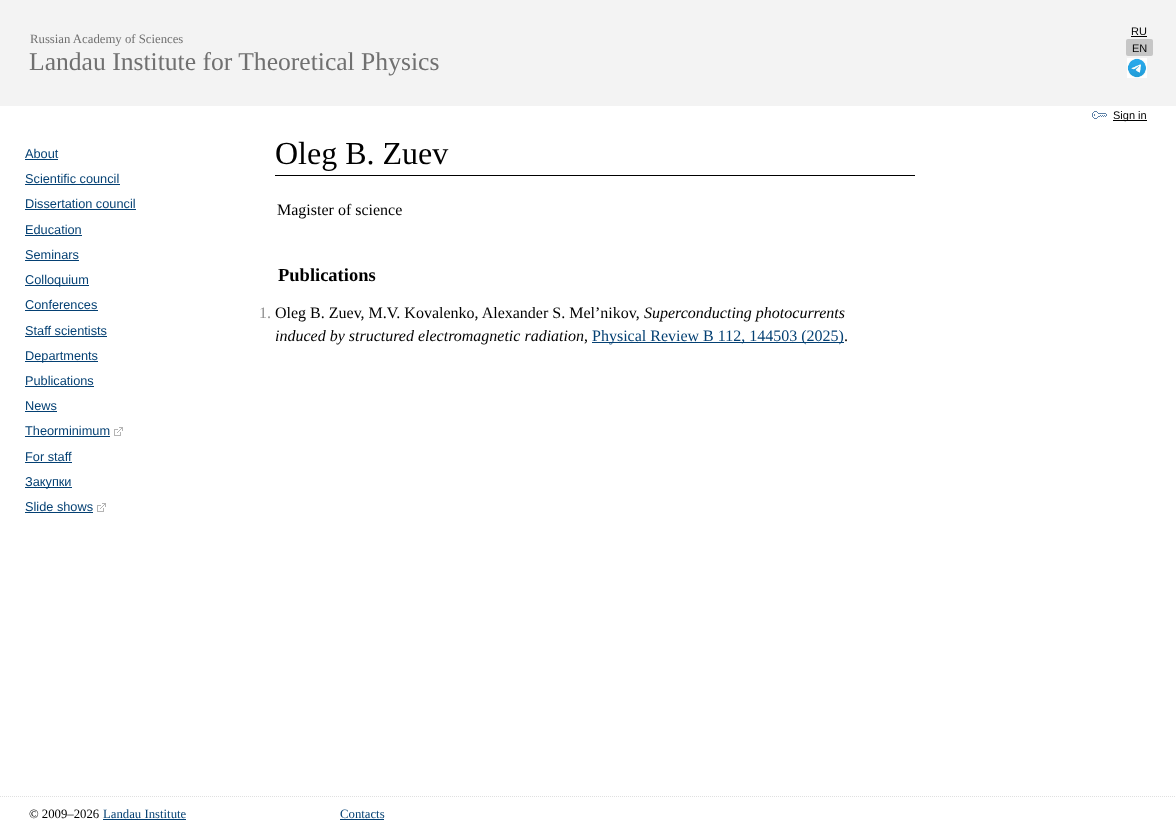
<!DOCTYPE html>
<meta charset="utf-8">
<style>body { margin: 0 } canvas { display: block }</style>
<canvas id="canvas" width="1176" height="833"></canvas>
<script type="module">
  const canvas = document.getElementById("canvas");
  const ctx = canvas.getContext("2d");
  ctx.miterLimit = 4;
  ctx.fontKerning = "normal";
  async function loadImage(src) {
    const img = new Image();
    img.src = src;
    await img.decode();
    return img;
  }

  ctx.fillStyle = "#ffffff";
  ctx.fillRect(0, 0, 1176, 833);
  ctx.fillStyle = "#f3f3f3";
  ctx.fillRect(0, 0, 1176, 106);
  ctx.font = "12.75px Liberation Serif";
  ctx.fillStyle = "#707070";
  ctx.fillText("Russian Academy of Sciences", 30, 43);
  ctx.font = "25.6px Liberation Serif";
  ctx.fillText("Landau Institute for Theoretical Physics", 29, 70);
  ctx.font = "11px Liberation Sans";
  ctx.fillStyle = "#000000";
  ctx.fillText("RU", 1131, 35);
  ctx.fillRect(1131, 36, 16, 1);
  ctx.fillStyle = "#c6c6c6";
  ctx.beginPath();
  ctx.roundRect(1126, 39, 27, 17, 2);
  ctx.fill();
  ctx.fillStyle = "#000000";
  ctx.fillText("EN", 1132, 52);
  ctx.drawImage(await loadImage("img1.png"), 1127, 58, 20, 20);
  ctx.drawImage(await loadImage("img2.png"), 1092, 111, 15, 8);
  ctx.fillRect(1113, 120, 34, 1);
  ctx.fillText("Sign in", 1113, 119);
  ctx.font = "12.75px Liberation Sans";
  ctx.fillStyle = "#044073";
  ctx.fillText("About", 25, 158);
  ctx.fillRect(25, 159, 33, 1);
  ctx.fillText("Scientific council", 25, 183);
  ctx.fillRect(25, 184, 95, 1);
  ctx.fillText("Dissertation council", 25, 208);
  ctx.fillRect(25, 209, 111, 1);
  ctx.fillText("Education", 25, 234);
  ctx.fillRect(25, 235, 57, 1);
  ctx.fillText("Seminars", 25, 259);
  ctx.fillRect(25, 260, 54, 1);
  ctx.fillRect(25, 285, 64, 1);
  ctx.fillText("Colloquium", 25, 284);
  ctx.fillText("Conferences", 25, 309);
  ctx.fillRect(25, 310, 73, 1);
  ctx.fillText("Staff scientists", 25, 335);
  ctx.fillRect(25, 336, 82, 1);
  ctx.fillRect(25, 361, 73, 1);
  ctx.fillText("Departments", 25, 360);
  ctx.fillText("Publications", 25, 385);
  ctx.fillRect(25, 386, 69, 1);
  ctx.fillText("News", 25, 410);
  ctx.fillRect(25, 411, 32, 1);
  ctx.fillText("Theorminimum", 25, 435);
  ctx.fillRect(25, 436, 85, 1);
  ctx.drawImage(await loadImage("img3.png"), 114, 427, 9, 9);
  ctx.fillText("For staff", 25, 461);
  ctx.fillRect(25, 462, 47, 1);
  ctx.fillRect(25, 487, 47, 1);
  ctx.fillText("Закупки", 25, 486);
  ctx.fillText("Slide shows", 25, 511);
  ctx.fillRect(25, 512, 68, 1);
  ctx.drawImage(await loadImage("img3.png"), 97, 503, 9, 9);
  ctx.fillStyle = "#000000";
  ctx.fillRect(275, 175, 640, 1);
  ctx.font = "32px Liberation Serif";
  ctx.fillText("Oleg B. Zuev", 275, 164);
  ctx.font = "16px Liberation Serif";
  ctx.fillText("Magister of science", 277, 215);
  ctx.font = "bold 18.5px Liberation Serif";
  ctx.fillText("Publications", 278, 281);
  ctx.font = "16px Liberation Serif";
  ctx.fillStyle = "#909090";
  ctx.fillText("1.", 259, 318);
  ctx.fillStyle = "#000000";
  ctx.fillText("Oleg B. Zuev, M.V. Kovalenko, Alexander S. Mel’nikov,", 275, 318);
  ctx.font = "italic 16px Liberation Serif";
  ctx.fillText("Superconducting photocurrents", 644, 318);
  ctx.fillText("induced by structured electromagnetic radiation", 275, 341);
  ctx.font = "16px Liberation Serif";
  ctx.fillText(",", 584, 341);
  ctx.fillStyle = "#044073";
  ctx.fillRect(592, 342, 252, 1);
  ctx.fillText("Physical Review B 112, 144503 (2025)", 592, 341);
  ctx.fillStyle = "#000000";
  ctx.fillText(".", 844, 341);
  ctx.beginPath();
  ctx.moveTo(0, 796.5);
  ctx.lineTo(1176, 796.5);
  ctx.strokeStyle = "#e0e0e0";
  ctx.setLineDash([1, 1]);
  ctx.stroke();
  ctx.font = "12.75px Liberation Serif";
  ctx.fillText("© 2009–2026", 29, 818);
  ctx.fillStyle = "#044073";
  ctx.fillText("Landau Institute", 103, 818);
  ctx.fillRect(103, 819, 83, 1);
  ctx.fillText("Contacts", 340, 818);
  ctx.fillRect(340, 819, 44, 1);
</script>
